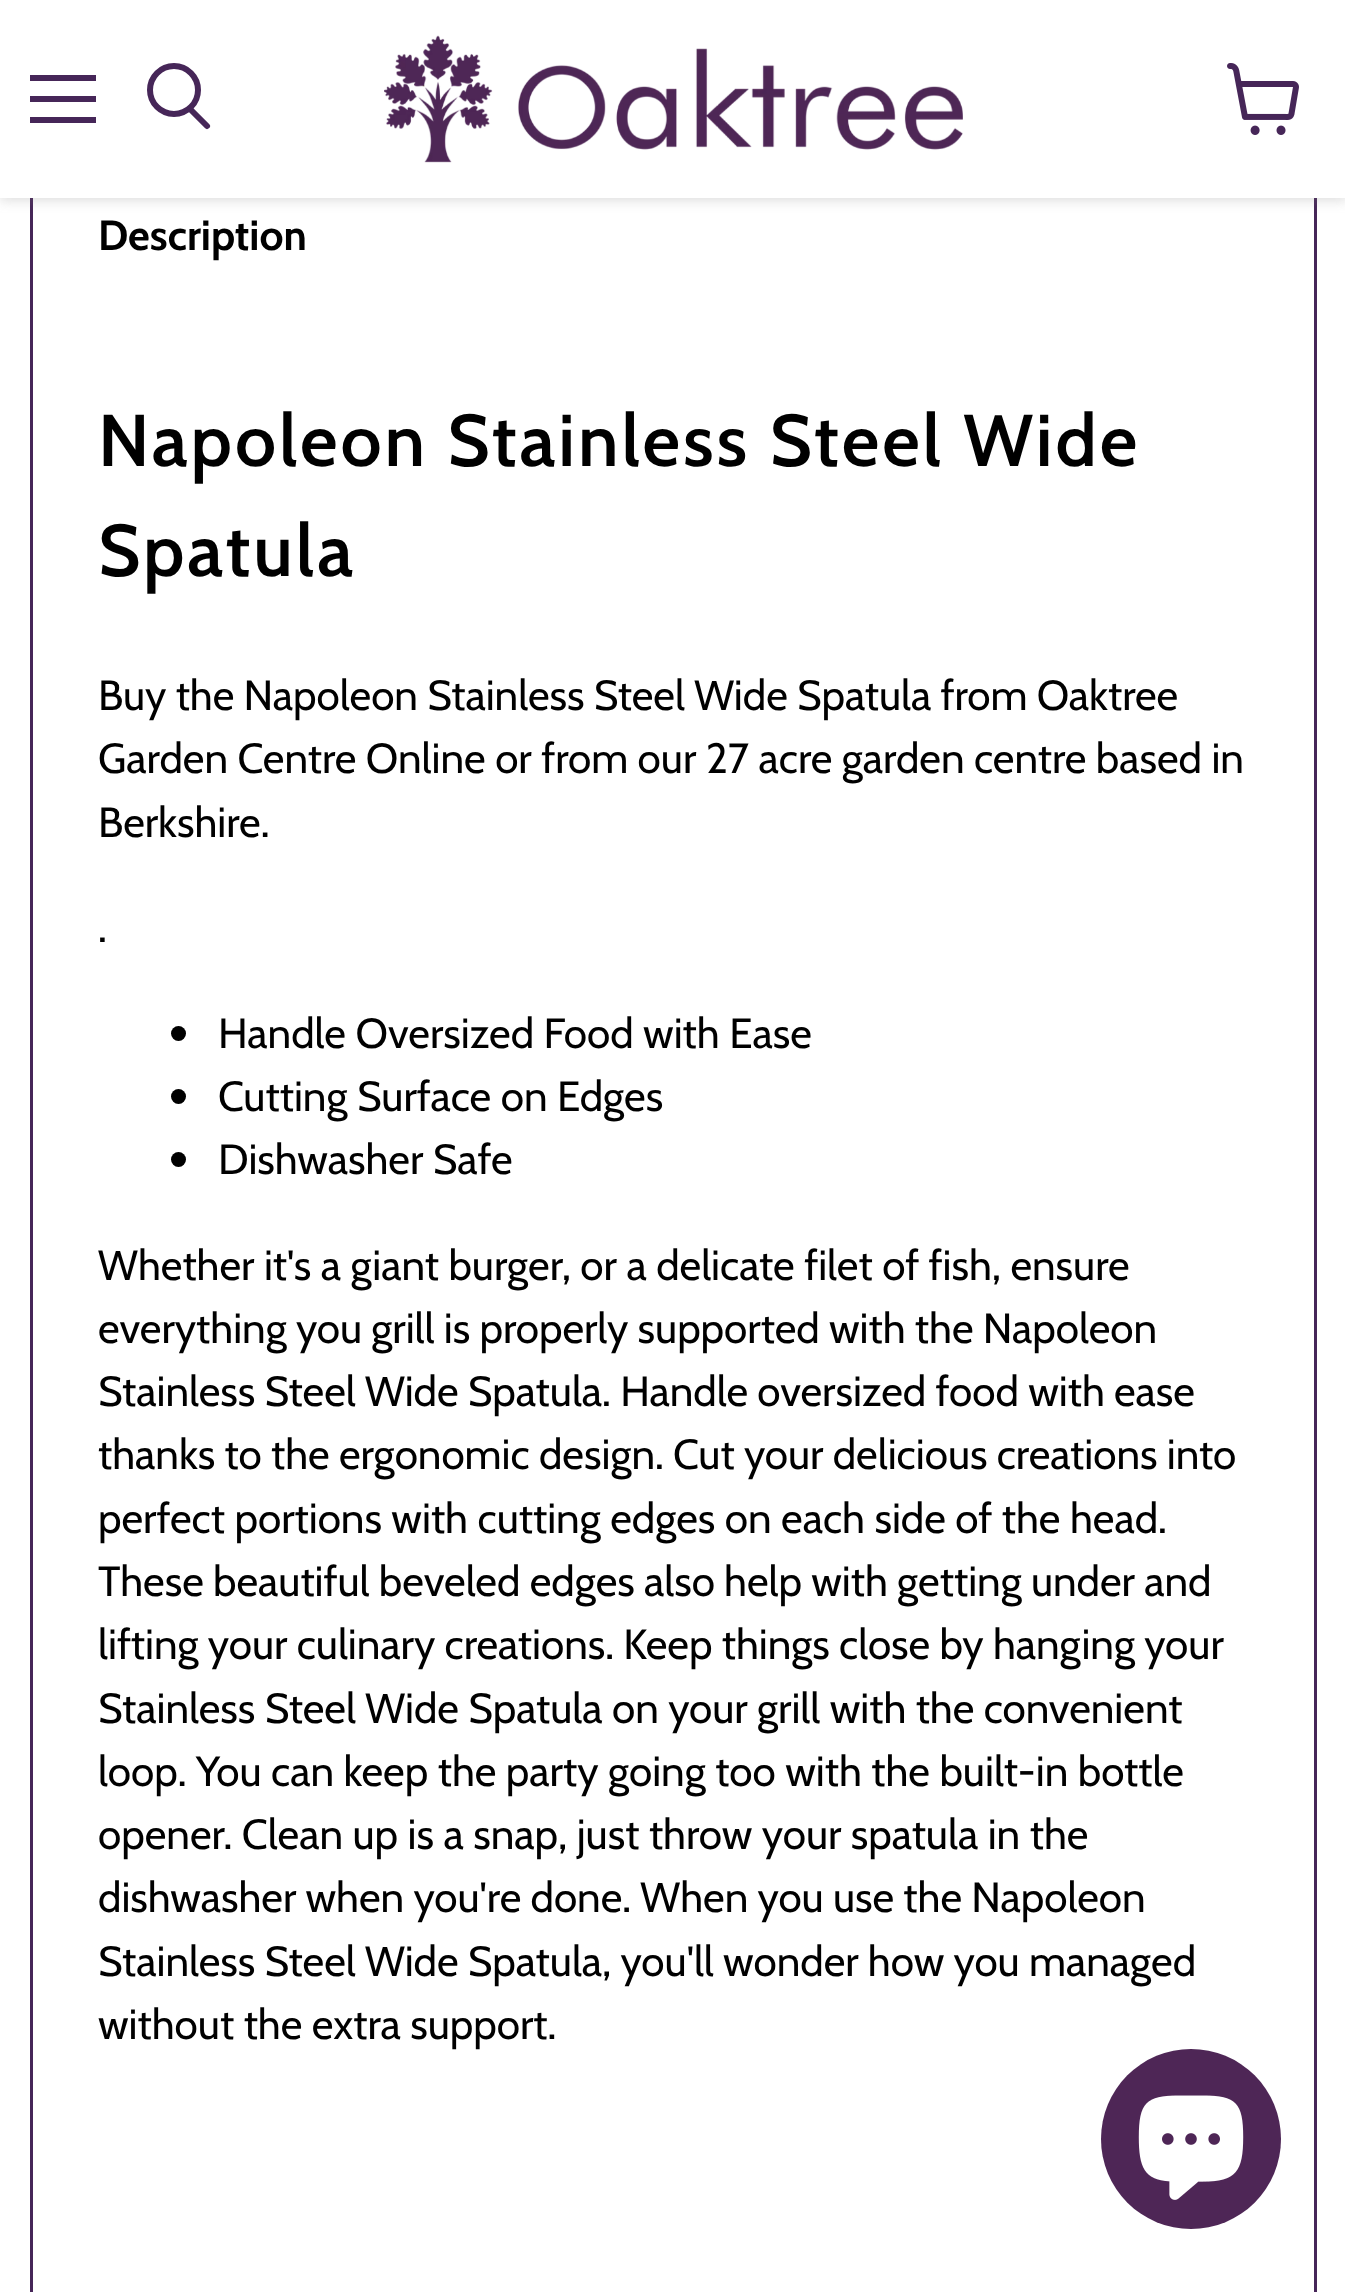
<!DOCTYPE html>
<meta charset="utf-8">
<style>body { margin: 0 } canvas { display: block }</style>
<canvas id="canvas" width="1345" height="2292"></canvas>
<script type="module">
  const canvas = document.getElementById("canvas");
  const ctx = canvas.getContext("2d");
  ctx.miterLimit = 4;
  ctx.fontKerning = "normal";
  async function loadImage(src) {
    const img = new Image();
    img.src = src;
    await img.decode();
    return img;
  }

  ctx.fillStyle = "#ffffff";
  ctx.fillRect(0, 0, 1345, 2292);
  ctx.fillStyle = "#462658";
  ctx.fillRect(1314, 198, 3, 2094);
  ctx.fillRect(30, 198, 3, 2094);
  ctx.fillStyle = "rgba(128, 128, 128, 0.25)";
  ctx.filter = "blur(6px)";
  ctx.beginPath();
  ctx.rect(0, 3, 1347, 198);
  ctx.fill();
  ctx.filter = "none";
  ctx.fillStyle = "#ffffff";
  ctx.fillRect(0, 0, 1345, 198);
  ctx.fillStyle = "#462658";
  ctx.fillRect(30, 75, 66, 6);
  ctx.fillRect(30, 96, 66, 6);
  ctx.fillRect(30, 117, 66, 6);
  ctx.beginPath();
  ctx.moveTo(207, 126);
  ctx.lineTo(190.5, 109.5);
  ctx.strokeStyle = "#462658";
  ctx.lineWidth = 6;
  ctx.lineCap = "round";
  ctx.stroke();
  ctx.beginPath();
  ctx.arc(174, 90, 24, 0, Math.PI * 2);
  ctx.stroke();
  ctx.drawImage(await loadImage("img1.png"), 384, 35, 579, 128);
  ctx.drawImage(await loadImage("img2.png"), 1227, 63, 72, 72);
  ctx.font = "bold 42.2px Cabin";
  ctx.fillStyle = "#000000";
  ctx.fillText("Description", 98, 250);
  ctx.letterSpacing = "2.9px";
  ctx.font = "600 73.1px Cabin";
  ctx.fillText("Napoleon Stainless Steel Wide", 98, 466);
  ctx.fillText("Spatula", 98, 576);
  ctx.letterSpacing = "0px";
  ctx.wordSpacing = "-0.25px";
  ctx.font = "42.2px Cabin";
  ctx.fillText("Buy the Napoleon Stainless Steel Wide Spatula from Oaktree", 98, 710);
  ctx.wordSpacing = "0px";
  ctx.fillText("Garden Centre Online or from our 27 acre garden centre based in", 98, 773);
  ctx.fillText("Berkshire.", 98, 837);
  ctx.fillText(".", 98, 942);
  ctx.beginPath();
  ctx.arc(178.5, 1033.5, 7.5, 0, Math.PI * 2);
  ctx.fill();
  ctx.fillText("Handle Oversized Food with Ease", 218, 1048);
  ctx.beginPath();
  ctx.arc(178.5, 1096.5, 7.5, 0, Math.PI * 2);
  ctx.fill();
  ctx.fillText("Cutting Surface on Edges", 218, 1111);
  ctx.beginPath();
  ctx.arc(178.5, 1159.5, 7.5, 0, Math.PI * 2);
  ctx.fill();
  ctx.fillText("Dishwasher Safe", 218, 1174);
  ctx.fillText("Whether it's a giant burger, or a delicate filet of fish, ensure", 98, 1280);
  ctx.wordSpacing = "-0.25px";
  ctx.fillText("everything you grill is properly supported with the Napoleon", 98, 1343);
  ctx.fillText("Stainless Steel Wide Spatula. Handle oversized food with ease", 98, 1406);
  ctx.fillText("thanks to the ergonomic design. Cut your delicious creations into", 98, 1469);
  ctx.wordSpacing = "0px";
  ctx.fillText("perfect portions with cutting edges on each side of the head.", 98, 1533);
  ctx.wordSpacing = "-0.25px";
  ctx.fillText("These beautiful beveled edges also help with getting under and", 98, 1596);
  ctx.fillText("lifting your culinary creations. Keep things close by hanging your", 98, 1659);
  ctx.wordSpacing = "-0.1px";
  ctx.fillText("Stainless Steel Wide Spatula on your grill with the convenient", 98, 1723);
  ctx.wordSpacing = "0px";
  ctx.fillText("loop. You can keep the party going too with the built-in bottle", 98, 1786);
  ctx.fillText("opener. Clean up is a snap, just throw your spatula in the", 98, 1849);
  ctx.wordSpacing = "-0.25px";
  ctx.fillText("dishwasher when you're done. When you use the Napoleon", 98, 1912);
  ctx.fillText("Stainless Steel Wide Spatula, you'll wonder how you managed", 98, 1976);
  ctx.wordSpacing = "0px";
  ctx.fillText("without the extra support.", 98, 2039);
  ctx.fillStyle = "#4e2656";
  ctx.beginPath();
  ctx.arc(1191, 2139, 90, 0, Math.PI * 2);
  ctx.fill();
  ctx.drawImage(await loadImage("img3.png"), 1138, 2095, 106, 105);
</script>
